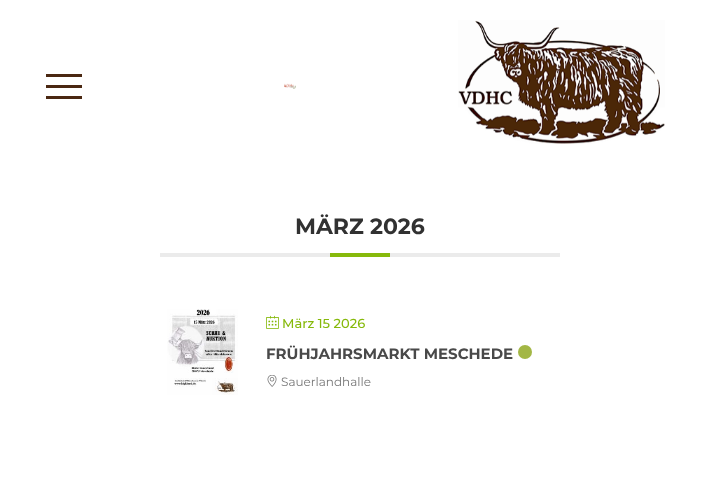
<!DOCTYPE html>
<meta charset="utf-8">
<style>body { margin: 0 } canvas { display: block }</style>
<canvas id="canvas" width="719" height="483"></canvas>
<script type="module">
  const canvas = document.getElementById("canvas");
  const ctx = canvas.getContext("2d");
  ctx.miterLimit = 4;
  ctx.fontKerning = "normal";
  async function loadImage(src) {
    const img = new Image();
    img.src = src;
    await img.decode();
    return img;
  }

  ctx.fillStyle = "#ffffff";
  ctx.fillRect(0, 0, 719, 483);
  ctx.fillStyle = "#4a2812";
  ctx.fillRect(46, 74, 36, 3);
  ctx.fillRect(46, 85, 36, 3);
  ctx.fillRect(46, 96, 36, 3);
  ctx.drawImage(await loadImage("img1.png"), 284, 83, 12, 6);
  ctx.drawImage(await loadImage("img2.png"), 458, 20, 207, 124);
  ctx.fillStyle = "#ebebeb";
  ctx.fillRect(160, 253, 400, 4);
  ctx.font = "bold 22px Montserrat";
  ctx.fillStyle = "#313131";
  ctx.fillText("MÄRZ 2026", 295, 234);
  ctx.fillStyle = "#86b90b";
  ctx.fillRect(330, 253, 60, 4);
  ctx.drawImage(await loadImage("img3.png"), 167, 309, 71, 86);
  ctx.drawImage(await loadImage("img4.png"), 266, 315, 13, 14);
  ctx.font = "500 13px Montserrat";
  ctx.fillText("März 15 2026", 282, 328);
  ctx.font = "bold 15px Montserrat";
  ctx.fillStyle = "#494949";
  ctx.fillText("FRÜHJAHRSMARKT MESCHEDE", 266, 359);
  ctx.fillStyle = "#a3b745";
  ctx.beginPath();
  ctx.arc(525, 352, 7, 0, Math.PI * 2);
  ctx.fill();
  ctx.drawImage(await loadImage("img5.png"), 267, 375, 10, 12);
  ctx.font = "12px Montserrat";
  ctx.fillStyle = "#777777";
  ctx.fillText("Sauerlandhalle", 281, 386);
</script>
